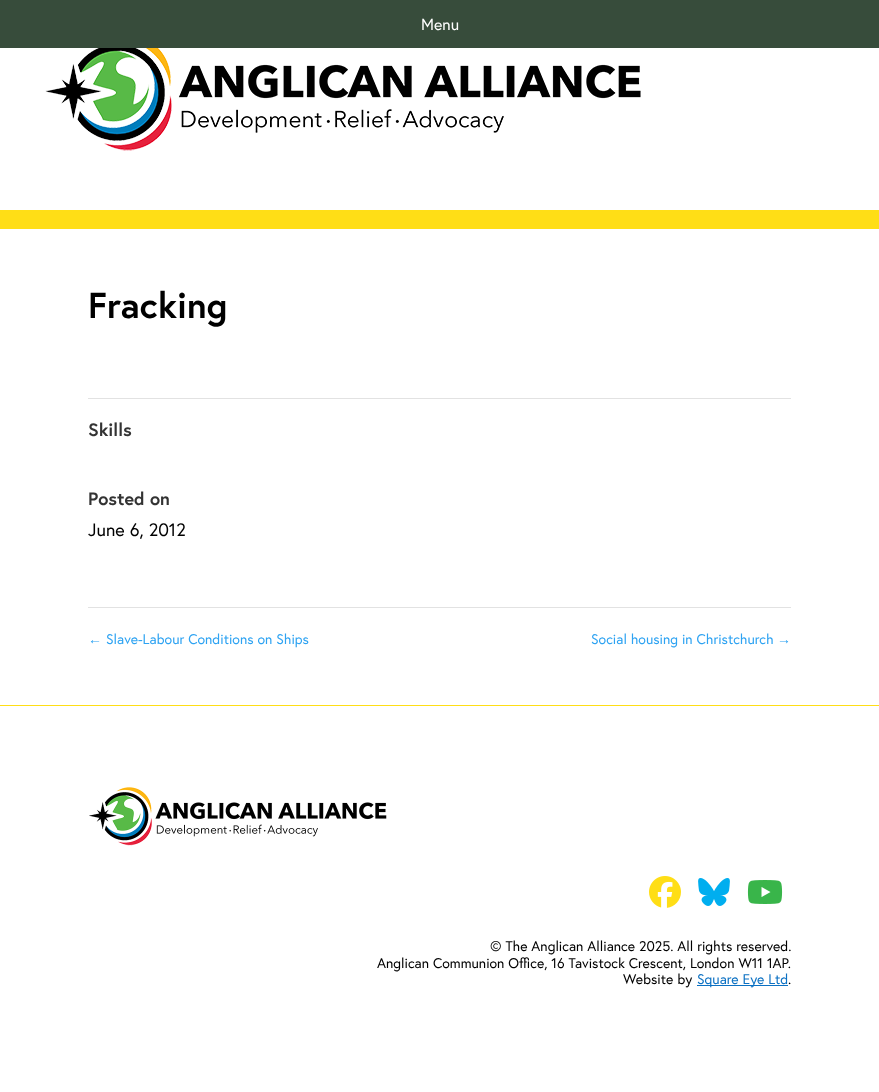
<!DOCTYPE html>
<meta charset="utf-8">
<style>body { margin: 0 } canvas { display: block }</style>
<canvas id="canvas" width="879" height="1092"></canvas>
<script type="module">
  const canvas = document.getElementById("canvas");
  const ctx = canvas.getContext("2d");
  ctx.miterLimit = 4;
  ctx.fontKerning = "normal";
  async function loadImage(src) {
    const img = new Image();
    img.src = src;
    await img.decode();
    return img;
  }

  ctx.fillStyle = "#ffffff";
  ctx.fillRect(0, 0, 879, 1092);
  ctx.fillStyle = "#374c3b";
  ctx.fillRect(0, 0, 879, 48);
  ctx.font = "16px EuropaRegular";
  ctx.fillStyle = "#ffffff";
  ctx.fillText("Menu", 421, 30);
  ctx.drawImage(await loadImage("img1.png"), 45, 48, 596, 103);
  ctx.fillStyle = "#ffde16";
  ctx.fillRect(0, 210, 879, 19);
  ctx.font = "bold 36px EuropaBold";
  ctx.fillStyle = "#000000";
  ctx.fillText("Fracking", 88, 318);
  ctx.fillStyle = "#e2e2e2";
  ctx.fillRect(88, 398, 703, 1);
  ctx.fillRect(88, 607, 703, 1);
  ctx.font = "bold 18px EuropaBold";
  ctx.fillStyle = "#333333";
  ctx.fillText("Skills", 88, 436);
  ctx.fillText("Posted on", 88, 505);
  ctx.font = "18px EuropaRegular";
  ctx.fillStyle = "#000000";
  ctx.fillText("June 6, 2012", 88, 536);
  ctx.font = "14px Liberation Sans";
  ctx.fillStyle = "#2ea3f2";
  ctx.fillText("←", 88, 644);
  ctx.font = "14px EuropaRegular";
  ctx.fillText("Slave-Labour Conditions on Ships", 106, 644);
  ctx.fillText("Social housing in Christchurch", 591, 644);
  ctx.font = "14px Liberation Sans";
  ctx.fillText("→", 777, 644);
  ctx.fillStyle = "#ffde16";
  ctx.fillRect(0, 705, 879, 1);
  ctx.drawImage(await loadImage("img2.png"), 89, 787, 298, 59);
  ctx.drawImage(await loadImage("img3.png"), 649, 876, 32, 32);
  ctx.drawImage(await loadImage("img4.png"), 698, 878, 32, 28);
  ctx.drawImage(await loadImage("img5.png"), 747, 880, 36, 24);
  ctx.font = "14px EuropaRegular";
  ctx.fillStyle = "#000000";
  ctx.fillText("© The Anglican Alliance 2025. All rights reserved.", 490, 951);
  ctx.fillText("Anglican Communion Office, 16 Tavistock Crescent, London W11 1AP.", 377, 968);
  ctx.fillText("Website by", 623, 984);
  ctx.fillStyle = "#0c71c3";
  ctx.fillRect(697, 985, 91, 1);
  ctx.fillText("Square Eye Ltd", 697, 984);
  ctx.fillStyle = "#000000";
  ctx.fillText(".", 788, 984);
</script>
